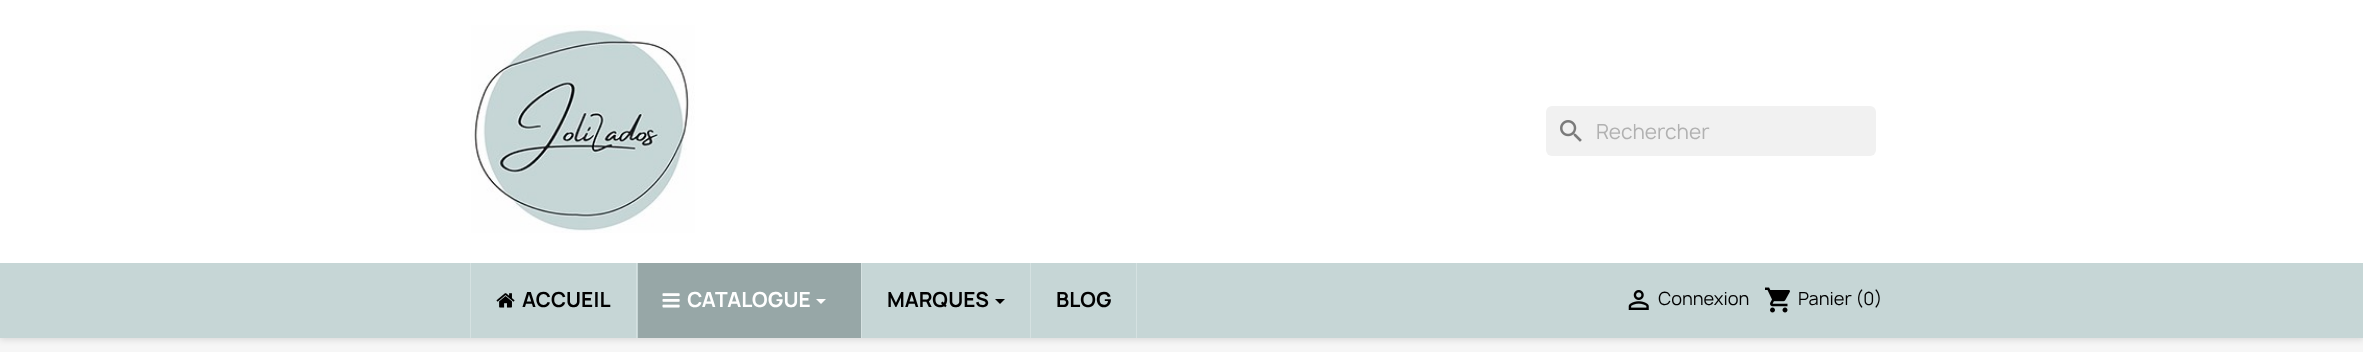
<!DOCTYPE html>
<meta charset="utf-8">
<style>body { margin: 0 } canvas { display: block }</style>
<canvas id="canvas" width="2363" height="352"></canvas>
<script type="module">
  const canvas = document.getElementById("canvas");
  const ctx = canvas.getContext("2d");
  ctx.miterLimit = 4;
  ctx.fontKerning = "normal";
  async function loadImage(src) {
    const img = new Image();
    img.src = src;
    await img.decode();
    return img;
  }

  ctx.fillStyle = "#f6f6f6";
  ctx.fillRect(0, 0, 2363, 352);
  ctx.fillStyle = "rgba(0, 0, 0, 0.11)";
  ctx.filter = "blur(3px)";
  ctx.beginPath();
  ctx.rect(0, 3, 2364, 337);
  ctx.fill();
  ctx.filter = "none";
  ctx.fillStyle = "#ffffff";
  ctx.fillRect(0, 0, 2363, 263);
  ctx.drawImage(await loadImage("img1.png"), 471, 25, 224, 208);
  ctx.fillStyle = "#f1f1f1";
  ctx.beginPath();
  ctx.roundRect(1546, 106, 330, 50, 6);
  ctx.fill();
  ctx.drawImage(await loadImage("img2.png"), 1560, 120, 22, 22);
  ctx.font = "20px Manrope";
  ctx.fillStyle = "#b1b1b1";
  ctx.fillText("Rechercher", 1596, 139);
  ctx.fillStyle = "#c6d6d6";
  ctx.fillRect(0, 263, 2363, 75);
  ctx.fillStyle = "#d5e1e1";
  ctx.fillRect(636, 263, 1, 75);
  ctx.fillRect(470, 263, 1, 75);
  ctx.drawImage(await loadImage("img3.png"), 496, 293, 19, 15);
  ctx.font = "bold 20px Manrope";
  ctx.fillStyle = "#000000";
  ctx.fillText("ACCUEIL", 522, 307);
  ctx.fillStyle = "#d5e1e1";
  ctx.fillRect(861, 263, 1, 75);
  ctx.fillStyle = "#97a7a7";
  ctx.fillRect(638, 263, 223, 75);
  ctx.drawImage(await loadImage("img4.png"), 662, 293, 18, 15);
  ctx.fillStyle = "#ffffff";
  ctx.fillText("CATALOGUE", 687, 307);
  ctx.beginPath();
  ctx.moveTo(816, 299);
  ctx.lineTo(826, 299);
  ctx.lineTo(821, 304);
  ctx.closePath();
  ctx.fill();
  ctx.fillStyle = "#d5e1e1";
  ctx.fillRect(1030, 263, 1, 75);
  ctx.fillStyle = "#000000";
  ctx.fillText("MARQUES", 887, 307);
  ctx.beginPath();
  ctx.moveTo(995, 299);
  ctx.lineTo(1005, 299);
  ctx.lineTo(1000, 304);
  ctx.closePath();
  ctx.fill();
  ctx.fillStyle = "#d5e1e1";
  ctx.fillRect(1136, 263, 1, 75);
  ctx.fillStyle = "#000000";
  ctx.fillText("BLOG", 1056, 307);
  ctx.drawImage(await loadImage("img5.png"), 1628, 290, 21, 20);
  ctx.font = "17.5px Manrope";
  ctx.fillText("Connexion", 1658, 305);
  ctx.drawImage(await loadImage("img6.png"), 1765, 287, 25, 26);
  ctx.fillText("Panier (0)", 1798, 305);
</script>
